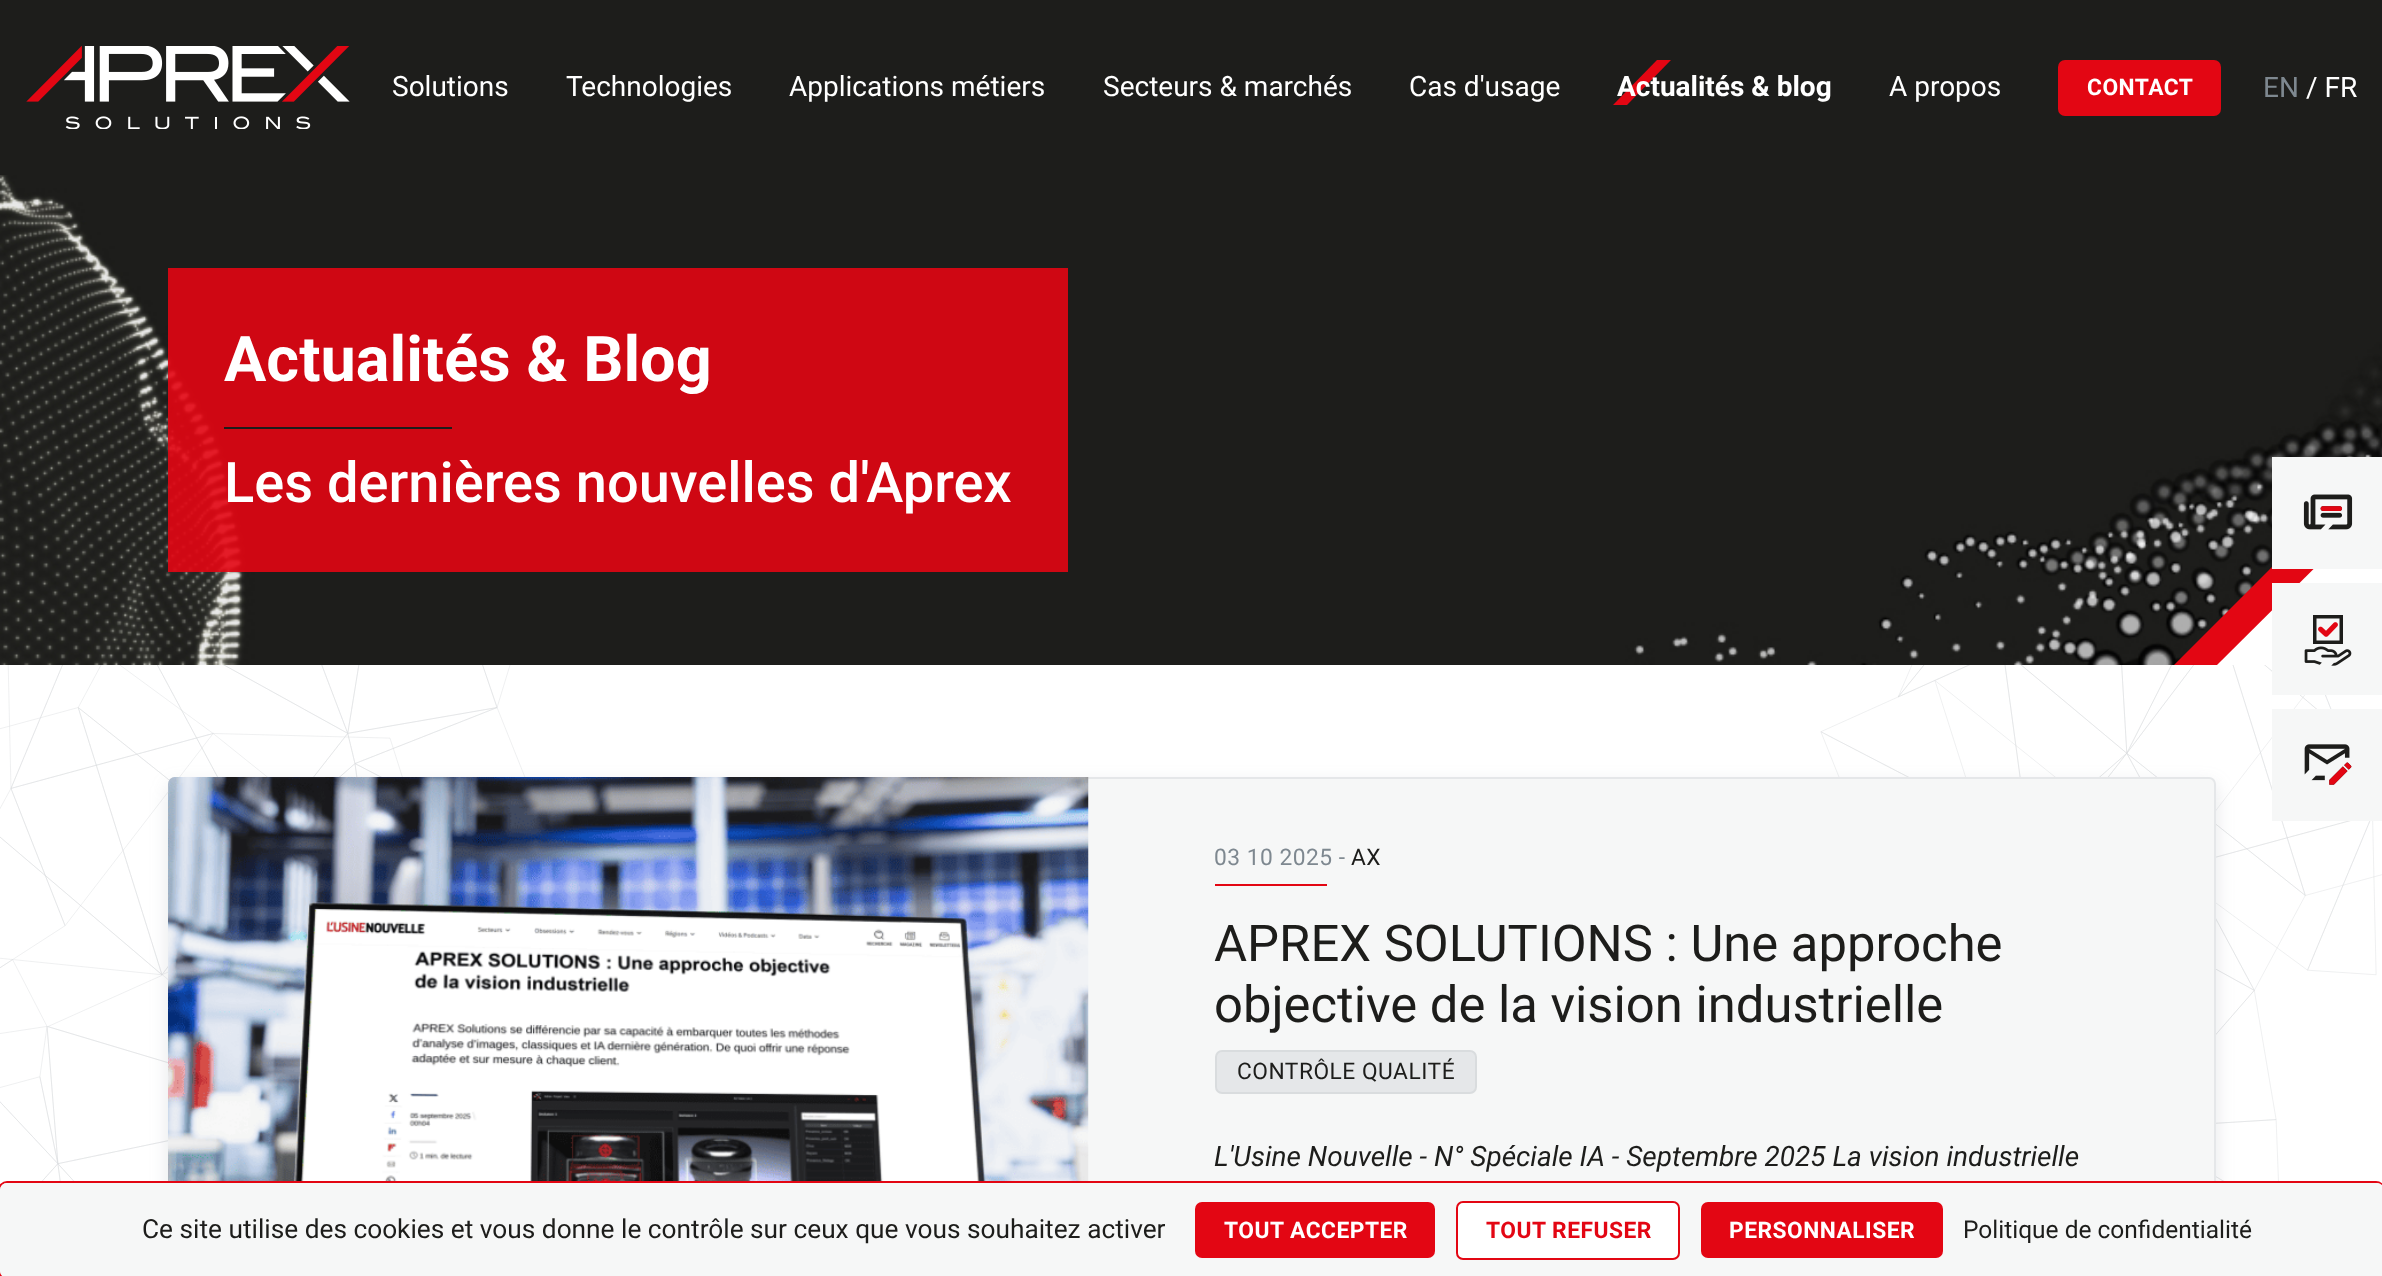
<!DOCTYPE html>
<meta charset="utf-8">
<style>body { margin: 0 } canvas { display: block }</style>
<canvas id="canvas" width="2382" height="1276"></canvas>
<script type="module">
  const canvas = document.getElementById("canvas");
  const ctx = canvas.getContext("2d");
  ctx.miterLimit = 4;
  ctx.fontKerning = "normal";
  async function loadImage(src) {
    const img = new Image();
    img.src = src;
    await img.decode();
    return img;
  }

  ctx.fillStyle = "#ffffff";
  ctx.fillRect(0, 0, 2382, 1276);
  ctx.drawImage(await loadImage("img1.png"), 0, 665, 2382, 516);
  ctx.fillStyle = "#1d1d1b";
  ctx.fillRect(0, 0, 2382, 175);
  ctx.drawImage(await loadImage("img2.png"), 26, 46, 324, 83);
  ctx.font = "28px Roboto";
  ctx.fillStyle = "#ffffff";
  ctx.fillText("Solutions", 392, 96);
  ctx.fillText("Technologies", 566, 96);
  ctx.fillText("Applications métiers", 789, 96);
  ctx.fillText("Secteurs & marchés", 1103, 96);
  ctx.fillText("Cas d'usage", 1409, 96);
  ctx.fillStyle = "#e30613";
  ctx.beginPath();
  ctx.moveTo(1657, 60);
  ctx.lineTo(1671, 60);
  ctx.lineTo(1627, 105);
  ctx.lineTo(1613, 105);
  ctx.closePath();
  ctx.fill();
  ctx.font = "bold 28px Roboto";
  ctx.fillStyle = "#ffffff";
  ctx.fillText("Actualités & blog", 1617, 96);
  ctx.font = "28px Roboto";
  ctx.fillText("A propos", 1889, 96);
  ctx.fillStyle = "#e30613";
  ctx.beginPath();
  ctx.roundRect(2058, 60, 163, 56, 7);
  ctx.fill();
  ctx.letterSpacing = "0.5px";
  ctx.font = "bold 22.75px Roboto";
  ctx.fillStyle = "#ffffff";
  ctx.fillText("CONTACT", 2087, 95);
  ctx.letterSpacing = "0px";
  ctx.font = "28px Roboto";
  ctx.fillStyle = "#7e8890";
  ctx.fillText("EN", 2263, 97);
  ctx.fillStyle = "#ffffff";
  ctx.fillText("/ FR", 2306, 97);
  ctx.drawImage(await loadImage("img3.png"), 0, 175, 2382, 490);
  ctx.fillStyle = "rgba(227, 6, 19, 0.9)";
  ctx.fillRect(168, 268, 900, 304);
  ctx.font = "bold 63px Roboto";
  ctx.fillStyle = "#ffffff";
  ctx.fillText("Actualités & Blog", 224, 381);
  ctx.fillStyle = "#1d1d1b";
  ctx.fillRect(224, 427, 228, 2);
  ctx.font = "500 56px Roboto";
  ctx.fillStyle = "#ffffff";
  ctx.fillText("Les dernières nouvelles d'Aprex", 224, 502);
  ctx.fillStyle = "#e30613";
  ctx.beginPath();
  ctx.moveTo(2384, 665);
  ctx.lineTo(2174, 665);
  ctx.lineTo(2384, 455);
  ctx.closePath();
  ctx.fill();
  ctx.fillStyle = "#ffffff";
  ctx.beginPath();
  ctx.moveTo(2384, 665);
  ctx.lineTo(2217, 665);
  ctx.lineTo(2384, 499);
  ctx.closePath();
  ctx.fill();
  ctx.fillStyle = "rgba(126, 136, 144, 0.2)";
  ctx.filter = "blur(9px)";
  ctx.beginPath();
  ctx.roundRect(168, 784, 2048, 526, 7);
  ctx.fill();
  ctx.filter = "none";
  ctx.fillStyle = "#f6f7f7";
  ctx.beginPath();
  ctx.roundRect(169, 778, 2046, 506, 6);
  ctx.fill();
  ctx.strokeStyle = "#e5e7e9";
  ctx.lineWidth = 2;
  ctx.stroke();
  ctx.drawImage(await loadImage("img4.png"), 168, 777, 921, 404);
  ctx.letterSpacing = "0.5px";
  ctx.font = "22.75px Roboto";
  ctx.fillStyle = "#7e8890";
  ctx.fillText("03 10 2025 -", 1214, 865);
  ctx.fillStyle = "#1d1d1b";
  ctx.fillText("AX", 1351, 865);
  ctx.fillStyle = "#e30613";
  ctx.fillRect(1215, 884, 112, 2);
  ctx.letterSpacing = "0px";
  ctx.font = "50.75px Roboto";
  ctx.fillStyle = "#1d1d1b";
  ctx.fillText("APREX SOLUTIONS : Une approche", 1214, 961);
  ctx.fillText("objective de la vision industrielle", 1214, 1022);
  ctx.fillStyle = "#e5e7e9";
  ctx.beginPath();
  ctx.roundRect(1216, 1051, 260, 42, 6);
  ctx.fill();
  ctx.strokeStyle = "#d9dcde";
  ctx.stroke();
  ctx.letterSpacing = "0.5px";
  ctx.font = "22.75px Roboto";
  ctx.fillStyle = "#1d1d1b";
  ctx.fillText("CONTRÔLE QUALITÉ", 1237, 1079);
  ctx.letterSpacing = "0px";
  ctx.font = "italic 28px Roboto";
  ctx.fillText("L'Usine Nouvelle - N° Spéciale IA - Septembre 2025 La vision industrielle", 1214, 1166);
  ctx.fillStyle = "#f6f7f7";
  ctx.fillRect(2272, 457, 110, 112);
  ctx.drawImage(await loadImage("img5.png"), 2303, 494, 50, 36);
  ctx.fillRect(2272, 583, 110, 112);
  ctx.drawImage(await loadImage("img6.png"), 2304, 615, 48, 51);
  ctx.fillRect(2272, 709, 110, 112);
  ctx.drawImage(await loadImage("img7.png"), 2304, 744, 48, 41);
  ctx.beginPath();
  ctx.roundRect(-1, 1182, 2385, 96, 8);
  ctx.strokeStyle = "#e30613";
  ctx.stroke();
  ctx.beginPath();
  ctx.roundRect(0, 1183, 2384, 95, 7);
  ctx.fill();
  ctx.font = "26.25px Roboto";
  ctx.fillStyle = "#1d1d1b";
  ctx.fillText("Ce site utilise des cookies et vous donne le contrôle sur ceux que vous souhaitez activer", 142, 1238);
  ctx.fillStyle = "#e30613";
  ctx.beginPath();
  ctx.roundRect(1195, 1202, 240, 56, 7);
  ctx.fill();
  ctx.letterSpacing = "0.5px";
  ctx.font = "bold 22.75px Roboto";
  ctx.fillStyle = "#ffffff";
  ctx.fillText("TOUT ACCEPTER", 1224, 1238);
  ctx.beginPath();
  ctx.roundRect(1457, 1202, 222, 57, 6);
  ctx.fill();
  ctx.stroke();
  ctx.fillStyle = "#e30613";
  ctx.fillText("TOUT REFUSER", 1486, 1238);
  ctx.beginPath();
  ctx.roundRect(1701, 1202, 242, 56, 7);
  ctx.fill();
  ctx.fillStyle = "#ffffff";
  ctx.fillText("PERSONNALISER", 1729, 1238);
  ctx.letterSpacing = "0px";
  ctx.font = "24.5px Roboto";
  ctx.fillStyle = "#1d1d1b";
  ctx.fillText("Politique de confidentialité", 1963, 1238);
</script>
